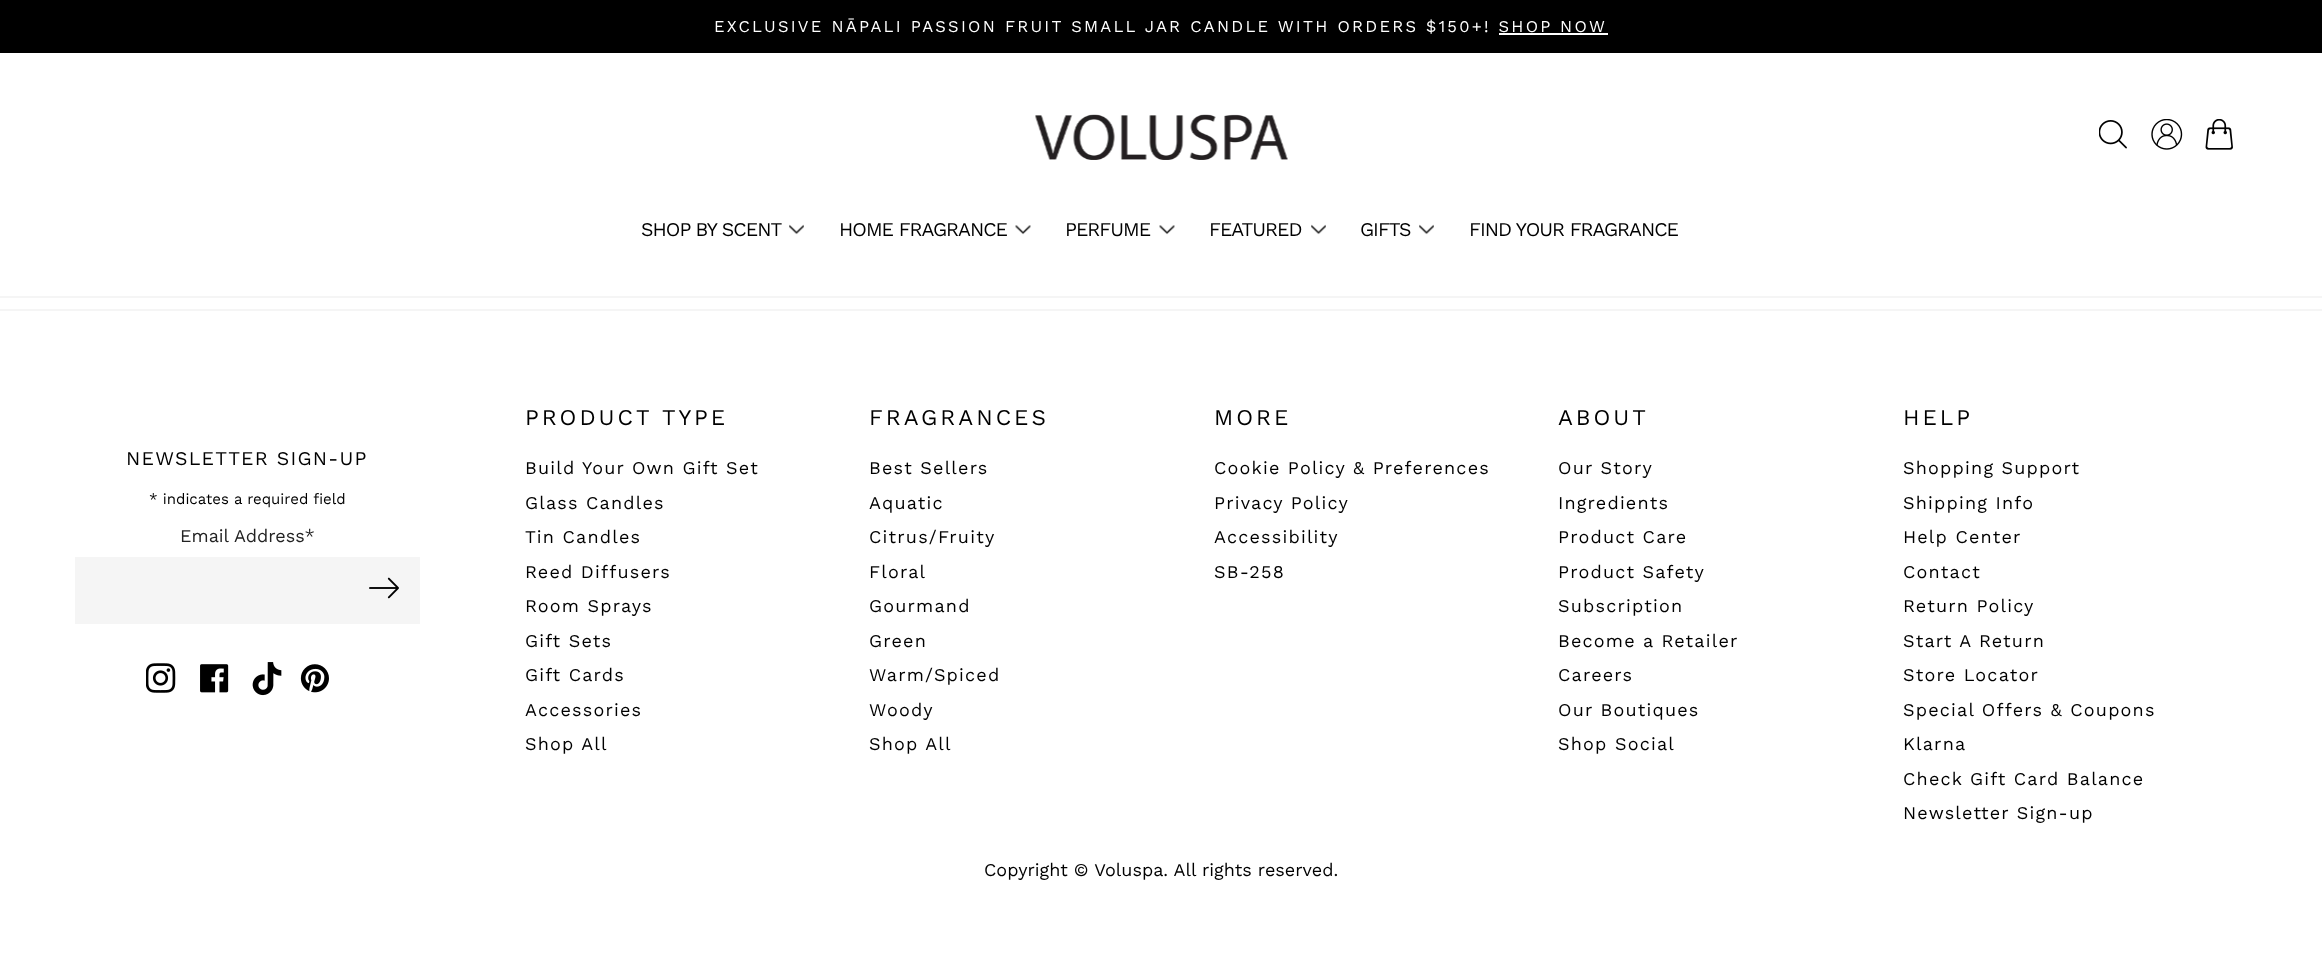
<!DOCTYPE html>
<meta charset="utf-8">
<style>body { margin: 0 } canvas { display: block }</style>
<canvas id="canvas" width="2322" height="975"></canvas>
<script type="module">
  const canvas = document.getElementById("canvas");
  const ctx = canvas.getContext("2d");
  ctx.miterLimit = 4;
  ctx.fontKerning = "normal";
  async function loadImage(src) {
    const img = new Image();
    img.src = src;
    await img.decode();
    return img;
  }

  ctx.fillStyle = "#ffffff";
  ctx.fillRect(0, 0, 2322, 975);
  ctx.fillStyle = "#000000";
  ctx.fillRect(0, 0, 2322, 53);
  ctx.letterSpacing = "2.25px";
  ctx.font = "16.5px Work Sans";
  ctx.fillStyle = "#ffffff";
  ctx.fillText("EXCLUSIVE NĀPALI PASSION FRUIT SMALL JAR CANDLE WITH ORDERS $150+! SHOP NOW", 714, 32);
  ctx.fillRect(1499, 33, 109, 2);
  ctx.fillStyle = "#f5f5f5";
  ctx.fillRect(0, 296, 2322, 2);
  ctx.drawImage(await loadImage("img1.png"), 1035, 114, 253, 46);
  ctx.drawImage(await loadImage("img2.png"), 2099, 120, 28, 29);
  ctx.drawImage(await loadImage("img3.png"), 2151, 119, 32, 31);
  ctx.drawImage(await loadImage("img4.png"), 2205, 119, 28, 31);
  ctx.letterSpacing = "-1px";
  ctx.font = "19.5px Work Sans";
  ctx.fillStyle = "#000000";
  ctx.fillText("SHOP BY SCENT", 641, 236);
  ctx.drawImage(await loadImage("img5.png"), 789, 224, 15, 11);
  ctx.fillText("HOME FRAGRANCE", 839, 236);
  ctx.drawImage(await loadImage("img6.png"), 1015, 225, 16, 10);
  ctx.fillText("PERFUME", 1065, 236);
  ctx.drawImage(await loadImage("img6.png"), 1159, 225, 16, 10);
  ctx.fillText("FEATURED", 1209, 236);
  ctx.drawImage(await loadImage("img5.png"), 1311, 224, 15, 11);
  ctx.fillText("GIFTS", 1360, 236);
  ctx.drawImage(await loadImage("img5.png"), 1419, 224, 15, 11);
  ctx.fillText("FIND YOUR FRAGRANCE", 1469, 236);
  ctx.fillStyle = "#f5f5f5";
  ctx.fillRect(0, 309, 2322, 2);
  ctx.letterSpacing = "1.2px";
  ctx.fillStyle = "#000000";
  ctx.fillText("NEWSLETTER SIGN-UP", 126, 465);
  ctx.letterSpacing = "0px";
  ctx.font = "15px Work Sans";
  ctx.fillText("* indicates a required field", 149, 504);
  ctx.font = "18px Work Sans";
  ctx.fillStyle = "#222222";
  ctx.fillText("Email Address*", 180, 542);
  ctx.fillStyle = "#f5f5f5";
  ctx.fillRect(75, 557, 345, 67);
  ctx.drawImage(await loadImage("img7.png"), 369, 577, 30, 22);
  ctx.drawImage(await loadImage("img8.png"), 146, 663, 30, 30);
  ctx.drawImage(await loadImage("img9.png"), 200, 664, 29, 29);
  ctx.drawImage(await loadImage("img10.png"), 252, 662, 30, 34);
  ctx.drawImage(await loadImage("img11.png"), 300, 664, 29, 29);
  ctx.letterSpacing = "3px";
  ctx.font = "22.5px Work Sans";
  ctx.fillStyle = "#000000";
  ctx.fillText("PRODUCT TYPE", 525, 425);
  ctx.letterSpacing = "1.2px";
  ctx.font = "18px Work Sans";
  ctx.fillText("Build Your Own Gift Set", 525, 474);
  ctx.fillText("Glass Candles", 525, 509);
  ctx.fillText("Tin Candles", 525, 543);
  ctx.fillText("Reed Diffusers", 525, 578);
  ctx.fillText("Room Sprays", 525, 612);
  ctx.fillText("Gift Sets", 525, 647);
  ctx.fillText("Gift Cards", 525, 681);
  ctx.fillText("Accessories", 525, 716);
  ctx.fillText("Shop All", 525, 750);
  ctx.letterSpacing = "3px";
  ctx.font = "22.5px Work Sans";
  ctx.fillText("FRAGRANCES", 869, 425);
  ctx.letterSpacing = "1.2px";
  ctx.font = "18px Work Sans";
  ctx.fillText("Best Sellers", 869, 474);
  ctx.fillText("Aquatic", 869, 509);
  ctx.fillText("Citrus/Fruity", 869, 543);
  ctx.fillText("Floral", 869, 578);
  ctx.fillText("Gourmand", 869, 612);
  ctx.fillText("Green", 869, 647);
  ctx.fillText("Warm/Spiced", 869, 681);
  ctx.fillText("Woody", 869, 716);
  ctx.fillText("Shop All", 869, 750);
  ctx.letterSpacing = "3px";
  ctx.font = "22.5px Work Sans";
  ctx.fillText("MORE", 1214, 425);
  ctx.letterSpacing = "1.2px";
  ctx.font = "18px Work Sans";
  ctx.fillText("Cookie Policy & Preferences", 1214, 474);
  ctx.fillText("Privacy Policy", 1214, 509);
  ctx.fillText("Accessibility", 1214, 543);
  ctx.fillText("SB-258", 1214, 578);
  ctx.letterSpacing = "3px";
  ctx.font = "22.5px Work Sans";
  ctx.fillText("ABOUT", 1558, 425);
  ctx.letterSpacing = "1.2px";
  ctx.font = "18px Work Sans";
  ctx.fillText("Our Story", 1558, 474);
  ctx.fillText("Ingredients", 1558, 509);
  ctx.fillText("Product Care", 1558, 543);
  ctx.fillText("Product Safety", 1558, 578);
  ctx.fillText("Subscription", 1558, 612);
  ctx.fillText("Become a Retailer", 1558, 647);
  ctx.fillText("Careers", 1558, 681);
  ctx.fillText("Our Boutiques", 1558, 716);
  ctx.fillText("Shop Social", 1558, 750);
  ctx.letterSpacing = "3px";
  ctx.font = "22.5px Work Sans";
  ctx.fillText("HELP", 1903, 425);
  ctx.letterSpacing = "1.2px";
  ctx.font = "18px Work Sans";
  ctx.fillText("Shopping Support", 1903, 474);
  ctx.fillText("Shipping Info", 1903, 509);
  ctx.fillText("Help Center", 1903, 543);
  ctx.fillText("Contact", 1903, 578);
  ctx.fillText("Return Policy", 1903, 612);
  ctx.fillText("Start A Return", 1903, 647);
  ctx.fillText("Store Locator", 1903, 681);
  ctx.fillText("Special Offers & Coupons", 1903, 716);
  ctx.fillText("Klarna", 1903, 750);
  ctx.fillText("Check Gift Card Balance", 1903, 785);
  ctx.fillText("Newsletter Sign-up", 1903, 819);
  ctx.letterSpacing = "0px";
  ctx.fillText("Copyright © Voluspa. All rights reserved.", 984, 876);
</script>
